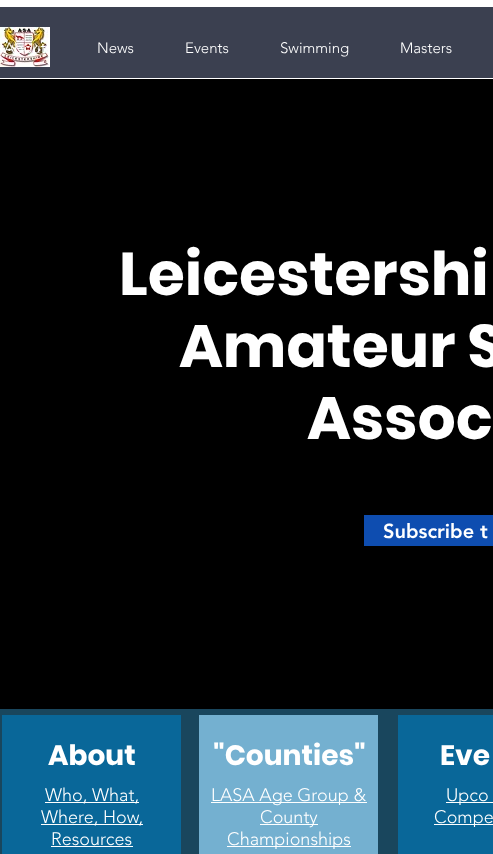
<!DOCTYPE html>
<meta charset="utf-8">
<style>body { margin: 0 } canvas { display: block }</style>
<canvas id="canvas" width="493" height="854"></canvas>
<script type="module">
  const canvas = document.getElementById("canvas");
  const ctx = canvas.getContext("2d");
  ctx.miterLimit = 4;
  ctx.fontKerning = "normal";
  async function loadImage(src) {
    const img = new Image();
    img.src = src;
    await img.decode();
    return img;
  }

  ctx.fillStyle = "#ffffff";
  ctx.fillRect(0, 0, 493, 854);
  ctx.fillStyle = "#3b4050";
  ctx.fillRect(0, 7, 493, 71);
  ctx.drawImage(await loadImage("img1.png"), 0, 27, 50, 40);
  ctx.font = "300 15px 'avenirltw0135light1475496'";
  ctx.fillStyle = "#ffffff";
  ctx.fillText("About", 4, 53);
  ctx.fillText("News", 97, 53);
  ctx.fillText("Events", 185, 53);
  ctx.fillText("Swimming", 280, 53);
  ctx.fillText("Masters", 400, 53);
  ctx.fillStyle = "#000000";
  ctx.fillRect(0, 79, 493, 630);
  ctx.font = "bold 60px Poppins";
  ctx.fillStyle = "#ffffff";
  ctx.fillText("Leicestershi", 119, 295);
  ctx.fillText("Amateur S", 179, 367);
  ctx.fillText("Assoc", 307, 439);
  ctx.fillStyle = "#0e4db0";
  ctx.fillRect(364, 515, 129, 31);
  ctx.font = "900 20px 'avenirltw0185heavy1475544'";
  ctx.fillStyle = "#ffffff";
  ctx.fillText("Subscribe t", 383, 538);
  ctx.fillStyle = "#19465d";
  ctx.fillRect(0, 709, 493, 145);
  ctx.fillStyle = "#096799";
  ctx.fillRect(2, 715, 179, 139);
  ctx.font = "bold 28px Poppins";
  ctx.fillStyle = "#ffffff";
  ctx.fillText("About", 48, 765);
  ctx.fillRect(45, 802, 94, 1);
  ctx.font = "300 18px 'avenirltw0135light1475496'";
  ctx.fillText("Who, What,", 45, 801);
  ctx.fillRect(41, 824, 102, 1);
  ctx.fillText("Where, How,", 41, 823);
  ctx.fillText("Resources", 51, 845);
  ctx.fillRect(51, 846, 82, 1);
  ctx.fillStyle = "#74b0d0";
  ctx.fillRect(199, 715, 179, 139);
  ctx.font = "bold 28px Poppins";
  ctx.fillStyle = "#ffffff";
  ctx.fillText("\"Counties\"", 213, 765);
  ctx.fillRect(211, 802, 156, 1);
  ctx.font = "300 18px 'avenirltw0135light1475496'";
  ctx.fillText("LASA Age Group &", 211, 801);
  ctx.fillRect(260, 824, 58, 1);
  ctx.fillText("County", 260, 823);
  ctx.fillRect(227, 846, 124, 1);
  ctx.fillText("Championships", 227, 845);
  ctx.fillStyle = "#096799";
  ctx.fillRect(398, 715, 95, 139);
  ctx.font = "bold 28px Poppins";
  ctx.fillStyle = "#ffffff";
  ctx.fillText("Eve", 440, 765);
  ctx.fillRect(446, 802, 47, 1);
  ctx.font = "300 18px 'avenirltw0135light1475496'";
  ctx.fillText("Upco", 446, 801);
  ctx.fillRect(434, 824, 59, 1);
  ctx.fillText("Compe", 434, 823);
</script>
